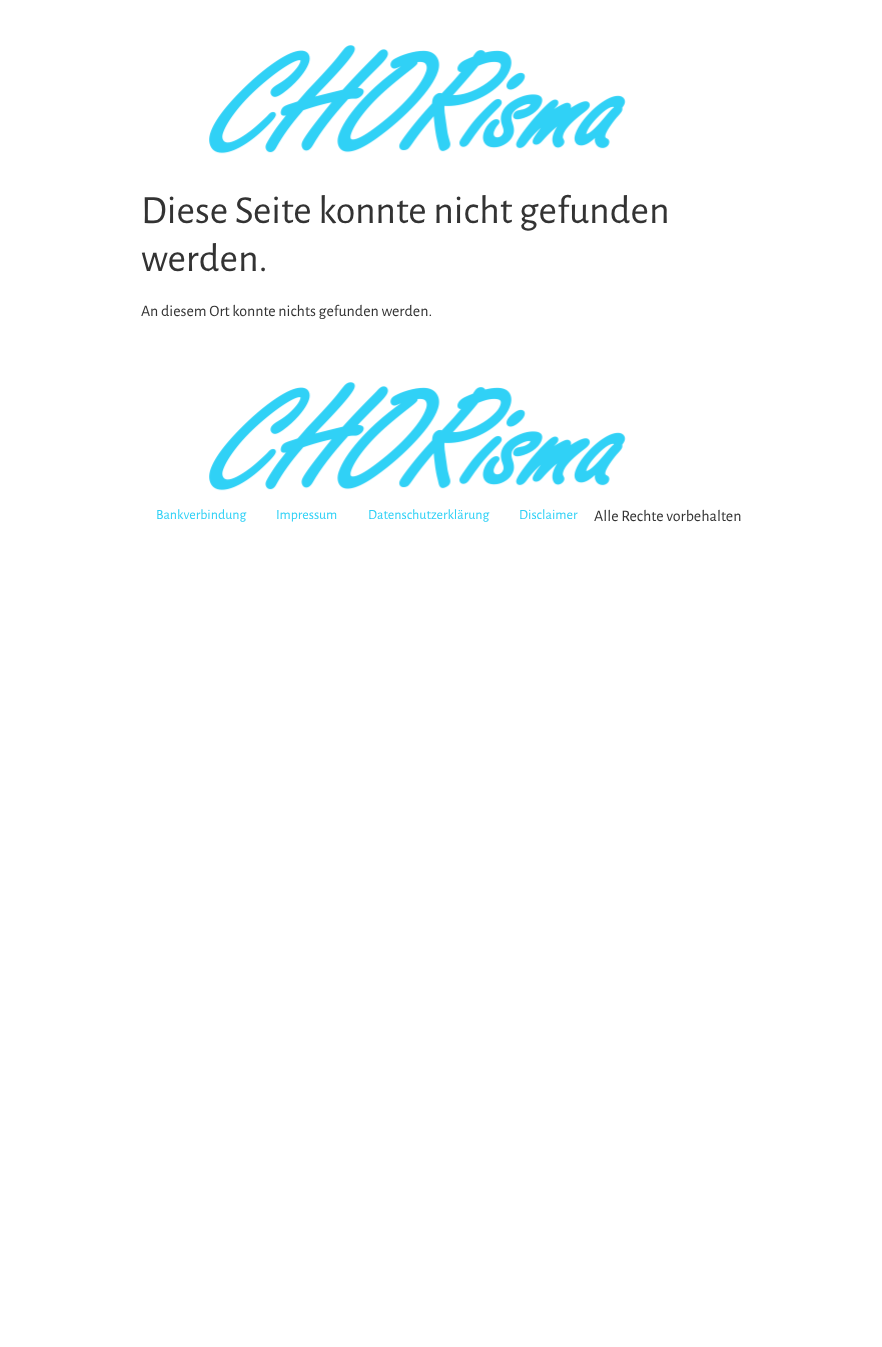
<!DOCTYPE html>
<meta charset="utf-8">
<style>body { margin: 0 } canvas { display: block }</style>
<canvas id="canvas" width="882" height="1347"></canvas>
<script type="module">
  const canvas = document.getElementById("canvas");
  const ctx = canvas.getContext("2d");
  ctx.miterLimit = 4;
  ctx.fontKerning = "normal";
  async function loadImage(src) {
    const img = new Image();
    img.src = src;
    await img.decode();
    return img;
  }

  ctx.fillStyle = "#ffffff";
  ctx.fillRect(0, 0, 882, 1347);
  ctx.drawImage(await loadImage("img1.png"), 209, 45, 417, 109);
  ctx.font = "40px Alegreya Sans";
  ctx.fillStyle = "#333333";
  ctx.fillText("Diese Seite konnte nicht gefunden", 141, 223);
  ctx.fillText("werden.", 141, 271);
  ctx.font = "16px Alegreya Sans";
  ctx.fillText("An diesem Ort konnte nichts gefunden werden.", 141, 316);
  ctx.drawImage(await loadImage("img1.png"), 209, 382, 417, 109);
  ctx.font = "14px Alegreya Sans";
  ctx.fillStyle = "#30d1f6";
  ctx.fillText("Bankverbindung", 156, 519);
  ctx.fillText("Impressum", 276, 519);
  ctx.fillText("Datenschutzerklärung", 368, 519);
  ctx.fillText("Disclaimer", 519, 519);
  ctx.font = "16px Alegreya Sans";
  ctx.fillStyle = "#333333";
  ctx.fillText("Alle Rechte vorbehalten", 594, 521);
</script>
